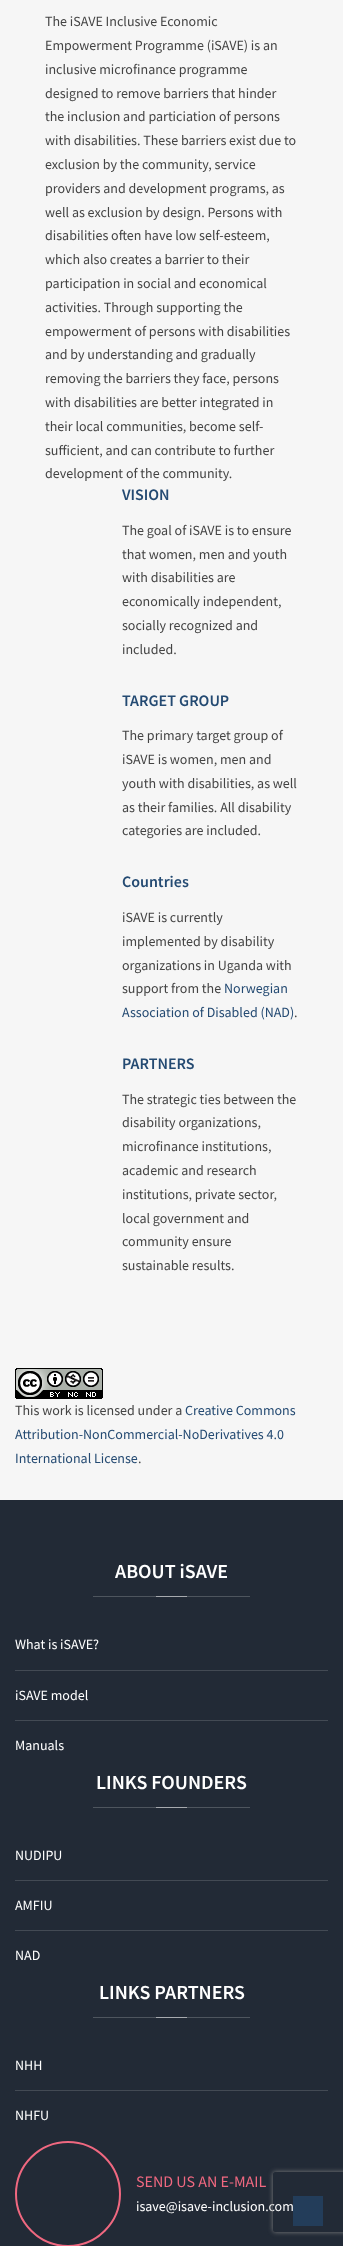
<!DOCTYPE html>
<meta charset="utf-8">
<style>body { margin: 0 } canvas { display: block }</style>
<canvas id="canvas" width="343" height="2246"></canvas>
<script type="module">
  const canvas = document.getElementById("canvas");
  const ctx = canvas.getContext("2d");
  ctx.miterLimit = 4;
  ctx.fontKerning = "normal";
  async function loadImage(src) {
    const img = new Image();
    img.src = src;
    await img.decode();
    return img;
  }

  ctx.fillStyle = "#f6f6f6";
  ctx.fillRect(0, 0, 343, 2246);
  ctx.font = "14px Source Sans Pro";
  ctx.fillStyle = "#444444";
  ctx.fillText("The iSAVE Inclusive Economic", 45, 26);
  ctx.fillText("Empowerment Programme (iSAVE) is an", 45, 50);
  ctx.fillText("inclusive microfinance programme", 45, 74);
  ctx.fillText("designed to remove barriers that hinder", 45, 98);
  ctx.fillText("the inclusion and particiation of persons", 45, 121);
  ctx.fillText("with disabilities. These barriers exist due to", 45, 145);
  ctx.fillText("exclusion by the community, service", 45, 169);
  ctx.fillText("providers and development programs, as", 45, 193);
  ctx.fillText("well as exclusion by design. Persons with", 45, 217);
  ctx.fillText("disabilities often have low self-esteem,", 45, 240);
  ctx.fillText("which also creates a barrier to their", 45, 264);
  ctx.fillText("participation in social and economical", 45, 288);
  ctx.fillText("activities. Through supporting the", 45, 312);
  ctx.fillText("empowerment of persons with disabilities", 45, 336);
  ctx.fillText("and by understanding and gradually", 45, 359);
  ctx.fillText("removing the barriers they face, persons", 45, 383);
  ctx.fillText("with disabilities are better integrated in", 45, 407);
  ctx.fillText("their local communities, become self-", 45, 431);
  ctx.fillText("sufficient, and can contribute to further", 45, 455);
  ctx.fillText("development of the community.", 45, 478);
  ctx.font = "600 16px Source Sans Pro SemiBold";
  ctx.fillStyle = "#244a72";
  ctx.fillText("VISION", 122, 500);
  ctx.font = "14px Source Sans Pro";
  ctx.fillStyle = "#444444";
  ctx.fillText("The goal of iSAVE is to ensure", 122, 535);
  ctx.fillText("that women, men and youth", 122, 559);
  ctx.fillText("with disabilities are", 122, 582);
  ctx.fillText("economically independent,", 122, 606);
  ctx.fillText("socially recognized and", 122, 630);
  ctx.fillText("included.", 122, 654);
  ctx.font = "600 16px Source Sans Pro SemiBold";
  ctx.fillStyle = "#244a72";
  ctx.fillText("TARGET GROUP", 122, 706);
  ctx.font = "14px Source Sans Pro";
  ctx.fillStyle = "#444444";
  ctx.fillText("The primary target group of", 122, 740);
  ctx.fillText("iSAVE is women, men and", 122, 764);
  ctx.fillText("youth with disabilities, as well", 122, 788);
  ctx.fillText("as their families. All disability", 122, 812);
  ctx.fillText("categories are included.", 122, 835);
  ctx.font = "600 16px Source Sans Pro SemiBold";
  ctx.fillStyle = "#244a72";
  ctx.fillText("Countries", 122, 887);
  ctx.font = "14px Source Sans Pro";
  ctx.fillStyle = "#444444";
  ctx.fillText("iSAVE is currently", 122, 922);
  ctx.fillText("implemented by disability", 122, 946);
  ctx.fillText("organizations in Uganda with", 122, 970);
  ctx.fillText("support from the", 122, 993);
  ctx.fillStyle = "#244a72";
  ctx.fillText("Norwegian", 224, 993);
  ctx.fillText("Association of Disabled (NAD)", 122, 1017);
  ctx.fillStyle = "#444444";
  ctx.fillText(".", 294, 1017);
  ctx.font = "600 16px Source Sans Pro SemiBold";
  ctx.fillStyle = "#244a72";
  ctx.fillText("PARTNERS", 122, 1069);
  ctx.font = "14px Source Sans Pro";
  ctx.fillStyle = "#444444";
  ctx.fillText("The strategic ties between the", 122, 1104);
  ctx.fillText("disability organizations,", 122, 1127);
  ctx.fillText("microfinance institutions,", 122, 1151);
  ctx.fillText("academic and research", 122, 1175);
  ctx.fillText("institutions, private sector,", 122, 1199);
  ctx.fillText("local government and", 122, 1223);
  ctx.fillText("community ensure", 122, 1246);
  ctx.fillText("sustainable results.", 122, 1270);
  ctx.drawImage(await loadImage("img1.png"), 15, 1368, 88, 31);
  ctx.fillText("This work is licensed under a", 15, 1415);
  ctx.fillStyle = "#244a72";
  ctx.fillText("Creative Commons", 185, 1415);
  ctx.fillText("Attribution-NonCommercial-NoDerivatives 4.0", 15, 1439);
  ctx.fillText("International License", 15, 1463);
  ctx.fillStyle = "#444444";
  ctx.fillText(".", 138, 1463);
  ctx.fillStyle = "#222a36";
  ctx.fillRect(0, 1500, 343, 746);
  ctx.fillStyle = "#4e555e";
  ctx.fillRect(93, 2017, 157, 1);
  ctx.fillRect(93, 1807, 157, 1);
  ctx.fillRect(93, 1596, 157, 1);
  ctx.font = "600 20px Source Sans Pro SemiBold";
  ctx.fillStyle = "#ffffff";
  ctx.fillText("ABOUT iSAVE", 115, 1578);
  ctx.fillStyle = "#a7aaaf";
  ctx.fillRect(156, 1596, 31, 1);
  ctx.font = "14px Source Sans Pro";
  ctx.fillStyle = "#ffffff";
  ctx.fillText("What is iSAVE?", 15, 1649);
  ctx.fillStyle = "#434a54";
  ctx.fillRect(15, 1670, 313, 1);
  ctx.fillStyle = "#ffffff";
  ctx.fillText("iSAVE model", 15, 1700);
  ctx.fillStyle = "#434a54";
  ctx.fillRect(15, 1720, 313, 1);
  ctx.fillStyle = "#ffffff";
  ctx.fillText("Manuals", 15, 1750);
  ctx.font = "600 20px Source Sans Pro SemiBold";
  ctx.fillText("LINKS FOUNDERS", 96, 1789);
  ctx.fillStyle = "#a7aaaf";
  ctx.fillRect(156, 1807, 31, 1);
  ctx.font = "14px Source Sans Pro";
  ctx.fillStyle = "#ffffff";
  ctx.fillText("NUDIPU", 15, 1860);
  ctx.fillStyle = "#434a54";
  ctx.fillRect(15, 1880, 313, 1);
  ctx.fillStyle = "#ffffff";
  ctx.fillText("AMFIU", 15, 1910);
  ctx.fillStyle = "#434a54";
  ctx.fillRect(15, 1930, 313, 1);
  ctx.fillStyle = "#ffffff";
  ctx.fillText("NAD", 15, 1960);
  ctx.font = "600 20px Source Sans Pro SemiBold";
  ctx.fillText("LINKS PARTNERS", 99, 1999);
  ctx.fillStyle = "#a7aaaf";
  ctx.fillRect(156, 2017, 31, 1);
  ctx.font = "14px Source Sans Pro";
  ctx.fillStyle = "#ffffff";
  ctx.fillText("NHH", 15, 2070);
  ctx.fillStyle = "#434a54";
  ctx.fillRect(15, 2090, 313, 1);
  ctx.fillStyle = "#ffffff";
  ctx.fillText("NHFU", 15, 2120);
  ctx.beginPath();
  ctx.arc(68, 2194, 52, 0, Math.PI * 2);
  ctx.strokeStyle = "#f06880";
  ctx.lineWidth = 2;
  ctx.stroke();
  ctx.font = "16px Source Sans Pro";
  ctx.fillStyle = "#f06880";
  ctx.fillText("SEND US AN E-MAIL", 136, 2187);
  ctx.font = "14px Source Sans Pro";
  ctx.fillStyle = "#ffffff";
  ctx.fillText("isave@isave-inclusion.com", 136, 2211);
  ctx.save();
  ctx.beginPath();
  ctx.moveTo(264, 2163);
  ctx.lineTo(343, 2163);
  ctx.lineTo(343, 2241);
  ctx.lineTo(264, 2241);
  ctx.closePath();
  ctx.moveTo(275, 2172);
  ctx.lineTo(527, 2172);
  ctx.bezierCurveTo(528, 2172, 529, 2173, 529, 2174);
  ctx.lineTo(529, 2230);
  ctx.bezierCurveTo(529, 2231, 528, 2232, 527, 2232);
  ctx.lineTo(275, 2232);
  ctx.bezierCurveTo(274, 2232, 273, 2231, 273, 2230);
  ctx.lineTo(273, 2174);
  ctx.bezierCurveTo(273, 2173, 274, 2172, 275, 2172);
  ctx.closePath();
  ctx.clip("evenodd");
  ctx.fillStyle = "#808080";
  ctx.filter = "blur(2.5px)";
  ctx.beginPath();
  ctx.roundRect(273, 2172, 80, 60, 2);
  ctx.fill();
  ctx.filter = "none";
  ctx.restore();
  ctx.fillStyle = "#233d5a";
  ctx.fillRect(293, 2196, 30, 30);
</script>
